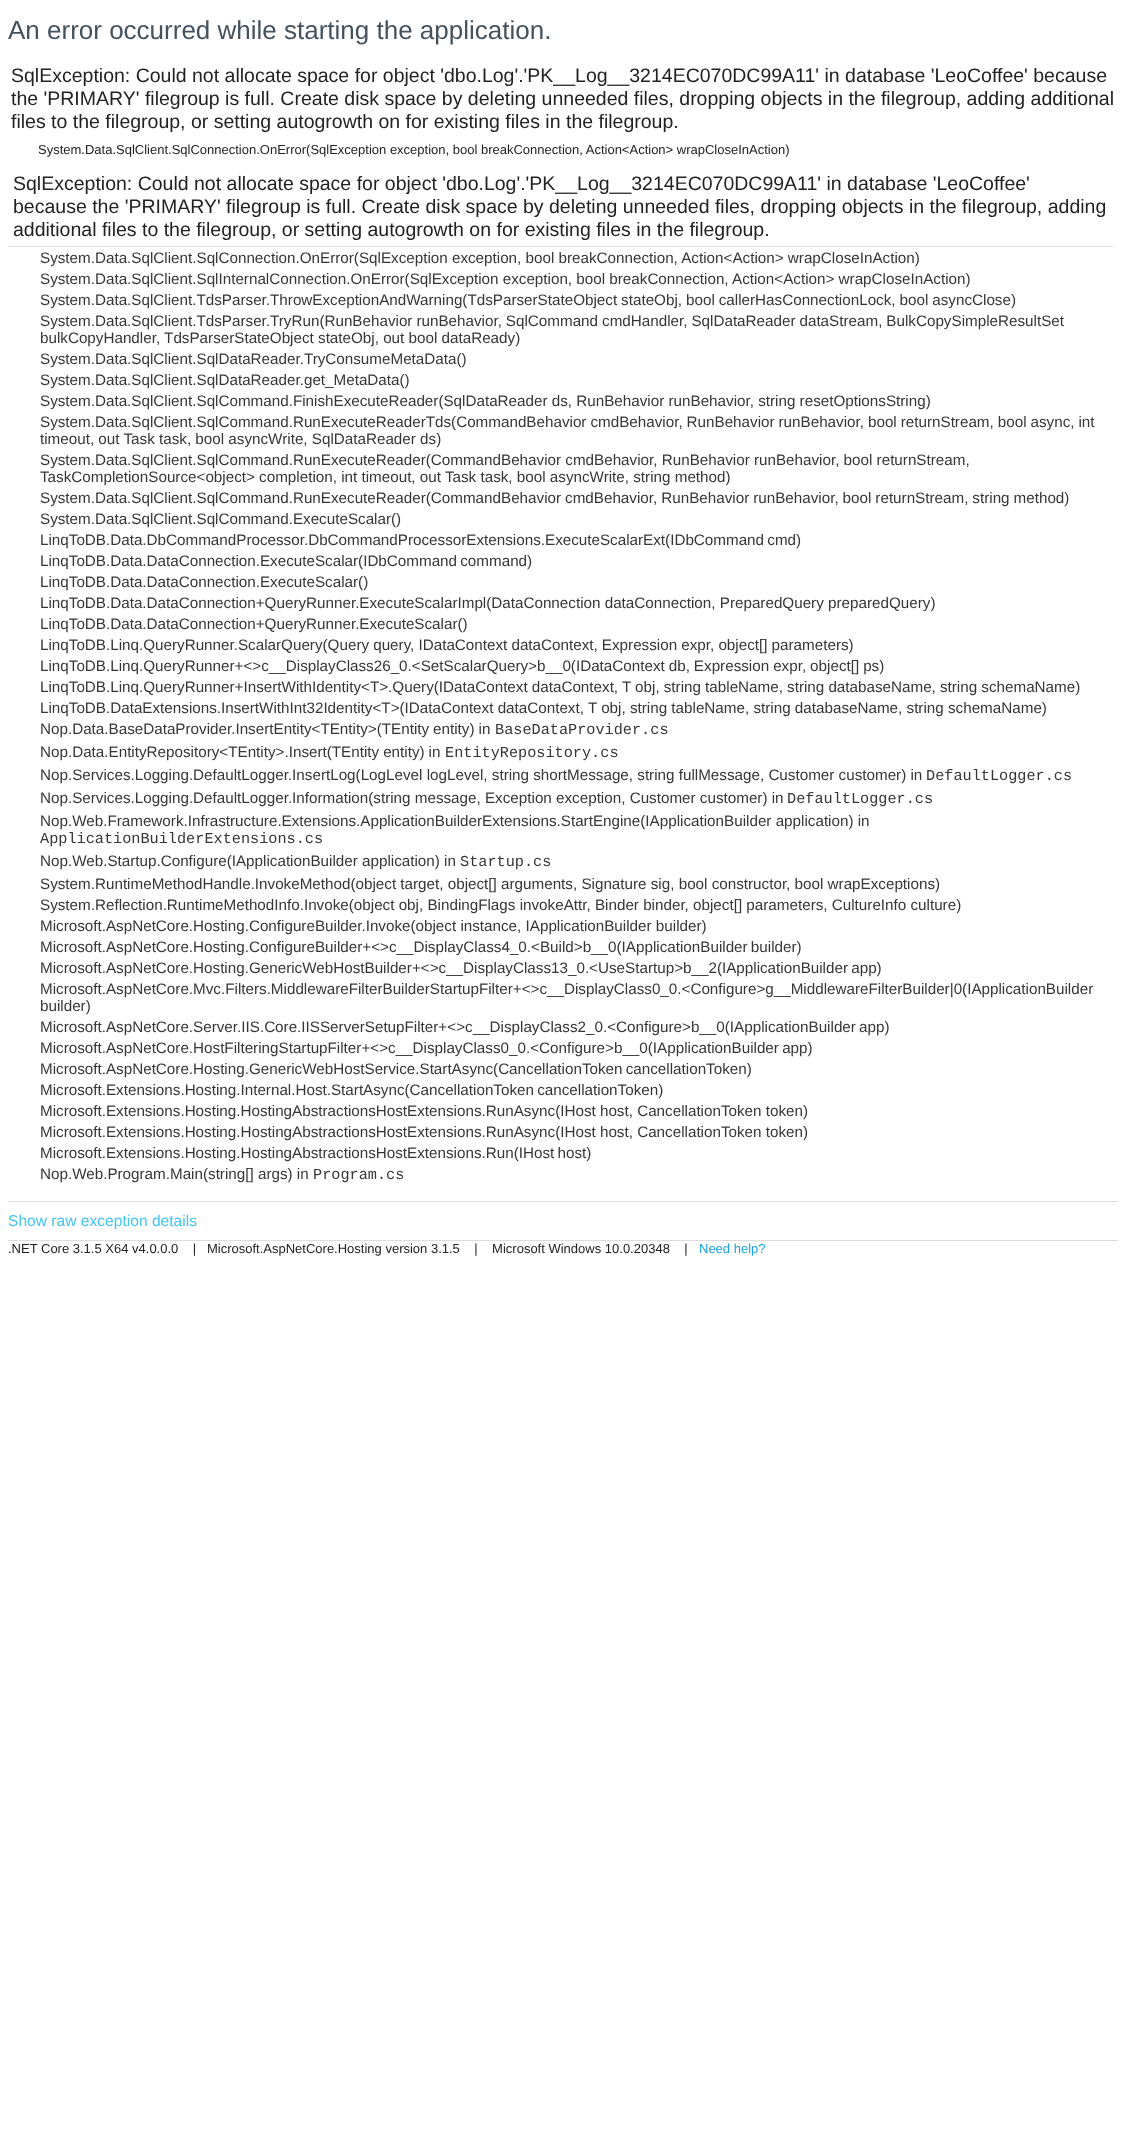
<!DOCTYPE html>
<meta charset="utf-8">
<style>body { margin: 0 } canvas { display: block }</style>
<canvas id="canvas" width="1126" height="2137"></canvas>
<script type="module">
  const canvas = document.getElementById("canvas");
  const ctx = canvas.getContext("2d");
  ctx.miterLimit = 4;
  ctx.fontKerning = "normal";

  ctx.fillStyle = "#ffffff";
  ctx.fillRect(0, 0, 1126, 2137);
  ctx.font = "26px Liberation Sans";
  ctx.fillStyle = "#44525e";
  ctx.fillText("An error occurred while starting the application.", 8, 39);
  ctx.font = "19.5px Liberation Sans";
  ctx.fillStyle = "#222222";
  ctx.fillText("SqlException: Could not allocate space for object 'dbo.Log'.'PK__Log__3214EC070DC99A11' in database 'LeoCoffee' because", 11, 82);
  ctx.fillText("the 'PRIMARY' filegroup is full. Create disk space by deleting unneeded files, dropping objects in the filegroup, adding additional", 11, 105);
  ctx.fillText("files to the filegroup, or setting autogrowth on for existing files in the filegroup.", 11, 128);
  ctx.font = "13px Liberation Sans";
  ctx.fillText("System.Data.SqlClient.SqlConnection.OnError(SqlException exception, bool breakConnection, Action<Action> wrapCloseInAction)", 38, 154);
  ctx.fillStyle = "#dddddd";
  ctx.fillRect(8, 246, 1105, 1);
  ctx.font = "19.5px Liberation Sans";
  ctx.fillStyle = "#222222";
  ctx.fillText("SqlException: Could not allocate space for object 'dbo.Log'.'PK__Log__3214EC070DC99A11' in database 'LeoCoffee'", 13, 190);
  ctx.fillText("because the 'PRIMARY' filegroup is full. Create disk space by deleting unneeded files, dropping objects in the filegroup, adding", 13, 213);
  ctx.fillText("additional files to the filegroup, or setting autogrowth on for existing files in the filegroup.", 13, 236);
  ctx.font = "15.22px Liberation Sans";
  ctx.fillStyle = "#363636";
  ctx.fillText("System.Data.SqlClient.SqlConnection.OnError(SqlException exception, bool breakConnection, Action<Action> wrapCloseInAction)", 40, 263);
  ctx.fillText("System.Data.SqlClient.SqlInternalConnection.OnError(SqlException exception, bool breakConnection, Action<Action> wrapCloseInAction)", 40, 284);
  ctx.wordSpacing = "-0.25px";
  ctx.fillText("System.Data.SqlClient.TdsParser.ThrowExceptionAndWarning(TdsParserStateObject stateObj, bool callerHasConnectionLock, bool asyncClose)", 40, 305);
  ctx.fillText("System.Data.SqlClient.TdsParser.TryRun(RunBehavior runBehavior, SqlCommand cmdHandler, SqlDataReader dataStream, BulkCopySimpleResultSet", 40, 326);
  ctx.wordSpacing = "0px";
  ctx.fillText("bulkCopyHandler, TdsParserStateObject stateObj, out bool dataReady)", 40, 343);
  ctx.fillText("System.Data.SqlClient.SqlDataReader.TryConsumeMetaData()", 40, 364);
  ctx.fillText("System.Data.SqlClient.SqlDataReader.get_MetaData()", 40, 385);
  ctx.fillText("System.Data.SqlClient.SqlCommand.FinishExecuteReader(SqlDataReader ds, RunBehavior runBehavior, string resetOptionsString)", 40, 406);
  ctx.wordSpacing = "-0.25px";
  ctx.fillText("System.Data.SqlClient.SqlCommand.RunExecuteReaderTds(CommandBehavior cmdBehavior, RunBehavior runBehavior, bool returnStream, bool async, int", 40, 427);
  ctx.wordSpacing = "0px";
  ctx.fillText("timeout, out Task task, bool asyncWrite, SqlDataReader ds)", 40, 444);
  ctx.fillText("System.Data.SqlClient.SqlCommand.RunExecuteReader(CommandBehavior cmdBehavior, RunBehavior runBehavior, bool returnStream,", 40, 465);
  ctx.fillText("TaskCompletionSource<object> completion, int timeout, out Task task, bool asyncWrite, string method)", 40, 482);
  ctx.wordSpacing = "-0.25px";
  ctx.fillText("System.Data.SqlClient.SqlCommand.RunExecuteReader(CommandBehavior cmdBehavior, RunBehavior runBehavior, bool returnStream, string method)", 40, 503);
  ctx.wordSpacing = "0px";
  ctx.fillText("System.Data.SqlClient.SqlCommand.ExecuteScalar()", 40, 524);
  ctx.wordSpacing = "-1px";
  ctx.fillText("LinqToDB.Data.DbCommandProcessor.DbCommandProcessorExtensions.ExecuteScalarExt(IDbCommand cmd)", 40, 545);
  ctx.fillText("LinqToDB.Data.DataConnection.ExecuteScalar(IDbCommand command)", 40, 566);
  ctx.wordSpacing = "0px";
  ctx.fillText("LinqToDB.Data.DataConnection.ExecuteScalar()", 40, 587);
  ctx.fillText("LinqToDB.Data.DataConnection+QueryRunner.ExecuteScalarImpl(DataConnection dataConnection, PreparedQuery preparedQuery)", 40, 608);
  ctx.fillText("LinqToDB.Data.DataConnection+QueryRunner.ExecuteScalar()", 40, 629);
  ctx.wordSpacing = "-0.1px";
  ctx.fillText("LinqToDB.Linq.QueryRunner.ScalarQuery(Query query, IDataContext dataContext, Expression expr, object[] parameters)", 40, 650);
  ctx.wordSpacing = "-0.25px";
  ctx.fillText("LinqToDB.Linq.QueryRunner+<>c__DisplayClass26_0.<SetScalarQuery>b__0(IDataContext db, Expression expr, object[] ps)", 40, 671);
  ctx.wordSpacing = "-0.1px";
  ctx.fillText("LinqToDB.Linq.QueryRunner+InsertWithIdentity<T>.Query(IDataContext dataContext, T obj, string tableName, string databaseName, string schemaName)", 40, 692);
  ctx.wordSpacing = "0px";
  ctx.fillText("LinqToDB.DataExtensions.InsertWithInt32Identity<T>(IDataContext dataContext, T obj, string tableName, string databaseName, string schemaName)", 40, 713);
  ctx.wordSpacing = "-0.25px";
  ctx.fillText("Nop.Data.BaseDataProvider.InsertEntity<TEntity>(TEntity entity) in", 40, 734);
  ctx.wordSpacing = "0px";
  ctx.font = "15.22px Liberation Mono";
  ctx.fillText("BaseDataProvider.cs", 495, 734);
  ctx.wordSpacing = "-0.25px";
  ctx.font = "15.22px Liberation Sans";
  ctx.fillText("Nop.Data.EntityRepository<TEntity>.Insert(TEntity entity) in", 40, 757);
  ctx.wordSpacing = "0px";
  ctx.font = "15.22px Liberation Mono";
  ctx.fillText("EntityRepository.cs", 445, 757);
  ctx.font = "15.22px Liberation Sans";
  ctx.fillText("Nop.Services.Logging.DefaultLogger.InsertLog(LogLevel logLevel, string shortMessage, string fullMessage, Customer customer) in", 40, 780);
  ctx.font = "15.22px Liberation Mono";
  ctx.fillText("DefaultLogger.cs", 926, 780);
  ctx.font = "15.22px Liberation Sans";
  ctx.fillText("Nop.Services.Logging.DefaultLogger.Information(string message, Exception exception, Customer customer) in", 40, 803);
  ctx.font = "15.22px Liberation Mono";
  ctx.fillText("DefaultLogger.cs", 787, 803);
  ctx.font = "15.22px Liberation Sans";
  ctx.fillText("Nop.Web.Framework.Infrastructure.Extensions.ApplicationBuilderExtensions.StartEngine(IApplicationBuilder application) in", 40, 826);
  ctx.font = "15.22px Liberation Mono";
  ctx.fillText("ApplicationBuilderExtensions.cs", 40, 843);
  ctx.font = "15.22px Liberation Sans";
  ctx.fillText("Nop.Web.Startup.Configure(IApplicationBuilder application) in", 40, 866);
  ctx.font = "15.22px Liberation Mono";
  ctx.fillText("Startup.cs", 460, 866);
  ctx.font = "15.22px Liberation Sans";
  ctx.fillText("System.RuntimeMethodHandle.InvokeMethod(object target, object[] arguments, Signature sig, bool constructor, bool wrapExceptions)", 40, 889);
  ctx.fillText("System.Reflection.RuntimeMethodInfo.Invoke(object obj, BindingFlags invokeAttr, Binder binder, object[] parameters, CultureInfo culture)", 40, 910);
  ctx.fillText("Microsoft.AspNetCore.Hosting.ConfigureBuilder.Invoke(object instance, IApplicationBuilder builder)", 40, 931);
  ctx.wordSpacing = "-1px";
  ctx.fillText("Microsoft.AspNetCore.Hosting.ConfigureBuilder+<>c__DisplayClass4_0.<Build>b__0(IApplicationBuilder builder)", 40, 952);
  ctx.fillText("Microsoft.AspNetCore.Hosting.GenericWebHostBuilder+<>c__DisplayClass13_0.<UseStartup>b__2(IApplicationBuilder app)", 40, 973);
  ctx.wordSpacing = "0px";
  ctx.fillText("Microsoft.AspNetCore.Mvc.Filters.MiddlewareFilterBuilderStartupFilter+<>c__DisplayClass0_0.<Configure>g__MiddlewareFilterBuilder|0(IApplicationBuilder", 40, 994);
  ctx.fillText("builder)", 40, 1011);
  ctx.wordSpacing = "-1px";
  ctx.fillText("Microsoft.AspNetCore.Server.IIS.Core.IISServerSetupFilter+<>c__DisplayClass2_0.<Configure>b__0(IApplicationBuilder app)", 40, 1032);
  ctx.fillText("Microsoft.AspNetCore.HostFilteringStartupFilter+<>c__DisplayClass0_0.<Configure>b__0(IApplicationBuilder app)", 40, 1053);
  ctx.fillText("Microsoft.AspNetCore.Hosting.GenericWebHostService.StartAsync(CancellationToken cancellationToken)", 40, 1074);
  ctx.fillText("Microsoft.Extensions.Hosting.Internal.Host.StartAsync(CancellationToken cancellationToken)", 40, 1095);
  ctx.wordSpacing = "0px";
  ctx.fillText("Microsoft.Extensions.Hosting.HostingAbstractionsHostExtensions.RunAsync(IHost host, CancellationToken token)", 40, 1116);
  ctx.fillText("Microsoft.Extensions.Hosting.HostingAbstractionsHostExtensions.RunAsync(IHost host, CancellationToken token)", 40, 1137);
  ctx.wordSpacing = "-1px";
  ctx.fillText("Microsoft.Extensions.Hosting.HostingAbstractionsHostExtensions.Run(IHost host)", 40, 1158);
  ctx.wordSpacing = "0px";
  ctx.fillText("Nop.Web.Program.Main(string[] args) in", 40, 1179);
  ctx.font = "15.22px Liberation Mono";
  ctx.fillText("Program.cs", 313, 1179);
  ctx.fillStyle = "#dddddd";
  ctx.fillRect(8, 1201, 1110, 1);
  ctx.fillRect(8, 1240, 1110, 1);
  ctx.font = "15.6px Liberation Sans";
  ctx.fillStyle = "#44c5f2";
  ctx.fillText("Show raw exception details", 8, 1226);
  ctx.font = "13px Liberation Sans";
  ctx.fillStyle = "#222222";
  ctx.fillText(".NET Core 3.1.5 X64 v4.0.0.0    |   Microsoft.AspNetCore.Hosting version 3.1.5    |    Microsoft Windows 10.0.20348    |", 8, 1253);
  ctx.fillStyle = "#1ba1e2";
  ctx.fillText("Need help?", 699, 1253);
</script>
